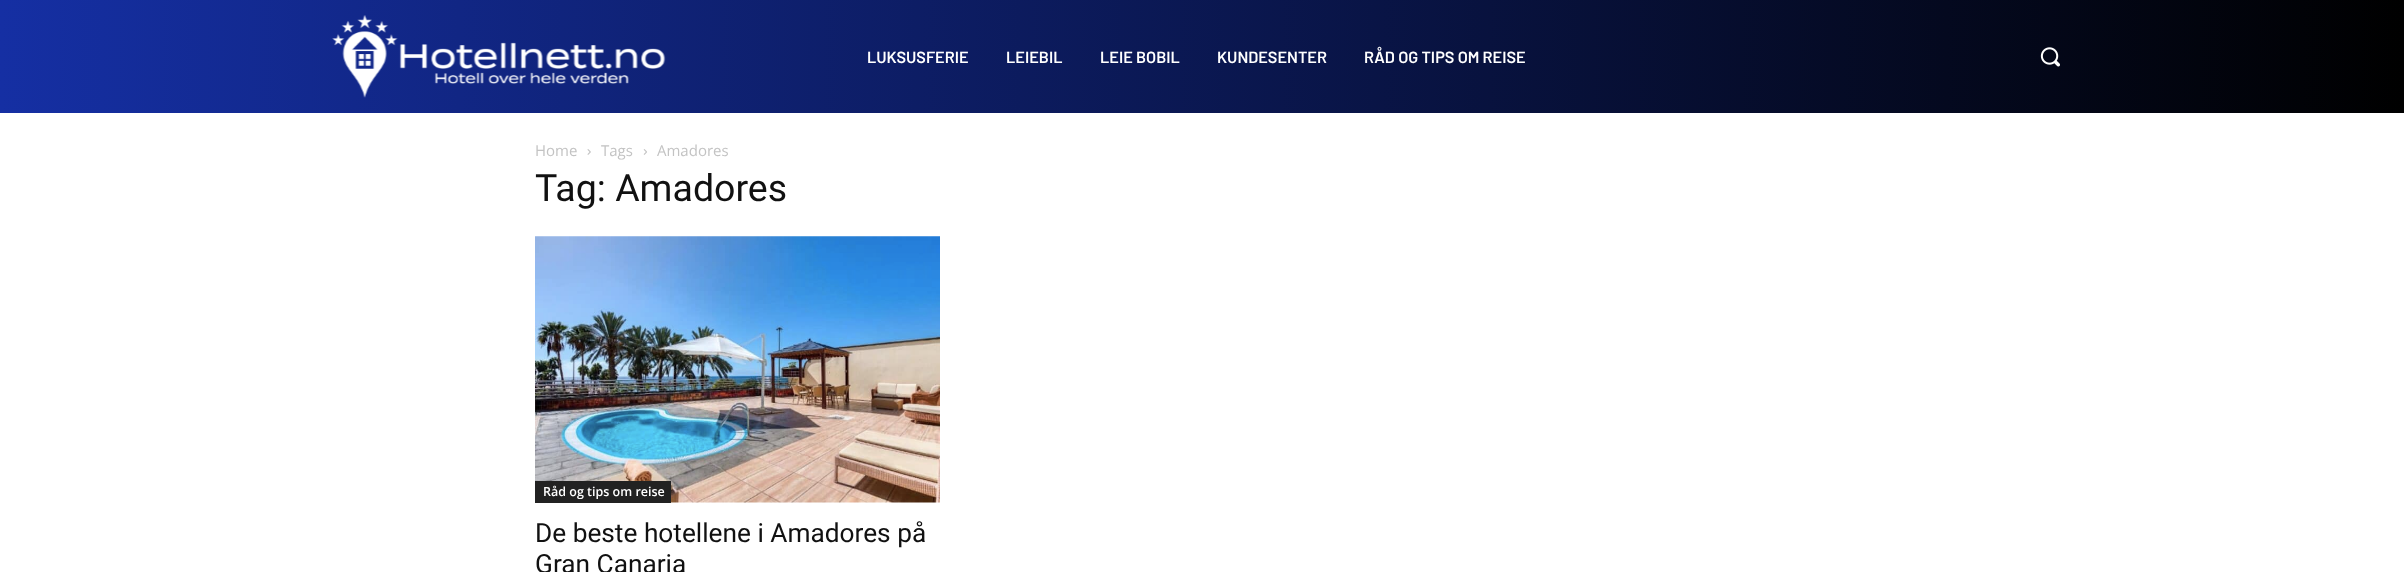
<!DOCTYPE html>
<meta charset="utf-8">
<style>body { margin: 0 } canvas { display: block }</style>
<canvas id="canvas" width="2404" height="572"></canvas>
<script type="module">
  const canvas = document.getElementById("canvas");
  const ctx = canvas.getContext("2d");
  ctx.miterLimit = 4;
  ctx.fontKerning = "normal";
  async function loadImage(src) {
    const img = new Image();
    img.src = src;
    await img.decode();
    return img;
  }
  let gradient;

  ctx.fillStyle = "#ffffff";
  ctx.fillRect(0, 0, 2404, 572);
  gradient = ctx.createLinearGradient(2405, 56, 0, 56);
  gradient.addColorStop(0, "#000000");
  gradient.addColorStop(1, "#152fa3");
  ctx.fillStyle = gradient;
  ctx.fillRect(0, 0, 2404, 113);
  ctx.drawImage(await loadImage("img1.png"), 332, 15, 334, 83);
  ctx.font = "600 16.25px Barlow";
  ctx.fillStyle = "#ffffff";
  ctx.fillText("LUKSUSFERIE", 867, 63);
  ctx.fillText("LEIEBIL", 1006, 63);
  ctx.fillText("LEIE BOBIL", 1100, 63);
  ctx.fillText("KUNDESENTER", 1217, 63);
  ctx.fillText("RÅD OG TIPS OM REISE", 1364, 63);
  ctx.drawImage(await loadImage("img2.png"), 2040, 47, 20, 20);
  ctx.font = "15px Open Sans";
  ctx.fillStyle = "#c3c3c3";
  ctx.fillText("Home", 535, 156);
  ctx.drawImage(await loadImage("img3.png"), 587, 149, 4, 6);
  ctx.fillText("Tags", 601, 156);
  ctx.drawImage(await loadImage("img4.png"), 643, 149, 4, 6);
  ctx.fillText("Amadores", 657, 156);
  ctx.font = "37.5px Roboto";
  ctx.fillStyle = "#111111";
  ctx.fillText("Tag: Amadores", 535, 201);
  ctx.drawImage(await loadImage("img5.png"), 535, 236, 405, 267);
  ctx.fillStyle = "#222222";
  ctx.fillRect(535, 481, 136, 22);
  ctx.font = "600 12.5px Open Sans";
  ctx.fillStyle = "#ffffff";
  ctx.fillText("Råd og tips om reise", 543, 496);
  ctx.font = "26.25px Roboto";
  ctx.fillStyle = "#111111";
  ctx.fillText("De beste hotellene i Amadores på", 535, 542);
  ctx.fillText("Gran Canaria", 535, 573);
</script>
